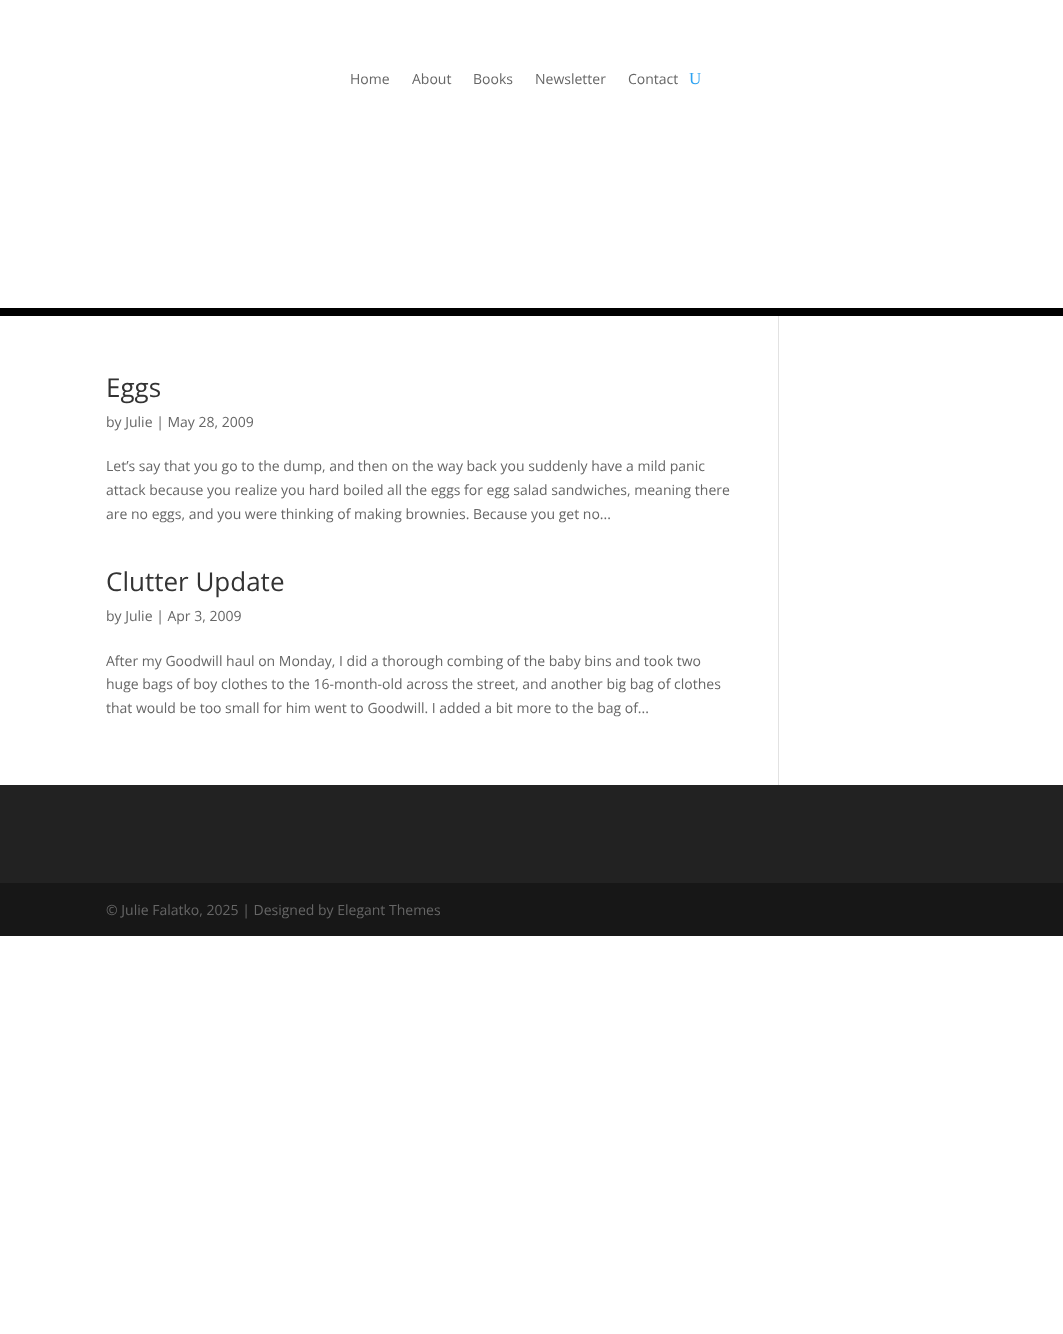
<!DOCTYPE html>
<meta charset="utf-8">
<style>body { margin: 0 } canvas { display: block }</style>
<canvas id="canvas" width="1063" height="1334"></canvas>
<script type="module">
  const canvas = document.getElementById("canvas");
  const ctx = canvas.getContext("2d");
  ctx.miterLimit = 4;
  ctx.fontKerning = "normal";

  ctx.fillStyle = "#ffffff";
  ctx.fillRect(0, 0, 1063, 1334);
  ctx.fillStyle = "#000000";
  ctx.fillRect(0, 308, 1063, 8);
  ctx.font = "14px Open Sans";
  ctx.fillStyle = "#666666";
  ctx.fillText("Home", 350, 84);
  ctx.fillText("About", 412, 84);
  ctx.fillText("Books", 473, 84);
  ctx.fillText("Newsletter", 535, 84);
  ctx.fillText("Contact", 628, 84);
  ctx.font = "17px Liberation Serif";
  ctx.fillStyle = "#2ea3f2";
  ctx.fillText("U", 689, 84);
  ctx.font = "26px Open Sans";
  ctx.fillStyle = "#333333";
  ctx.fillText("Eggs", 106, 397);
  ctx.font = "14px Open Sans";
  ctx.fillStyle = "#666666";
  ctx.fillText("by Julie | May 28, 2009", 106, 427);
  ctx.fillText("Let’s say that you go to the dump, and then on the way back you suddenly have a mild panic", 106, 471);
  ctx.fillText("attack because you realize you hard boiled all the eggs for egg salad sandwiches, meaning there", 106, 495);
  ctx.fillText("are no eggs, and you were thinking of making brownies. Because you get no...", 106, 519);
  ctx.font = "26px Open Sans";
  ctx.fillStyle = "#333333";
  ctx.fillText("Clutter Update", 106, 591);
  ctx.font = "14px Open Sans";
  ctx.fillStyle = "#666666";
  ctx.fillText("by Julie | Apr 3, 2009", 106, 621);
  ctx.fillText("After my Goodwill haul on Monday, I did a thorough combing of the baby bins and took two", 106, 666);
  ctx.fillText("huge bags of boy clothes to the 16-month-old across the street, and another big bag of clothes", 106, 689);
  ctx.fillText("that would be too small for him went to Goodwill. I added a bit more to the bag of...", 106, 713);
  ctx.fillStyle = "#e2e2e2";
  ctx.fillRect(778, 316, 1, 469);
  ctx.fillStyle = "#222222";
  ctx.fillRect(0, 785, 1063, 98);
  ctx.fillStyle = "#171717";
  ctx.fillRect(0, 883, 1063, 53);
  ctx.fillStyle = "#666666";
  ctx.fillText("© Julie Falatko, 2025 | Designed by Elegant Themes", 106, 915);
</script>
